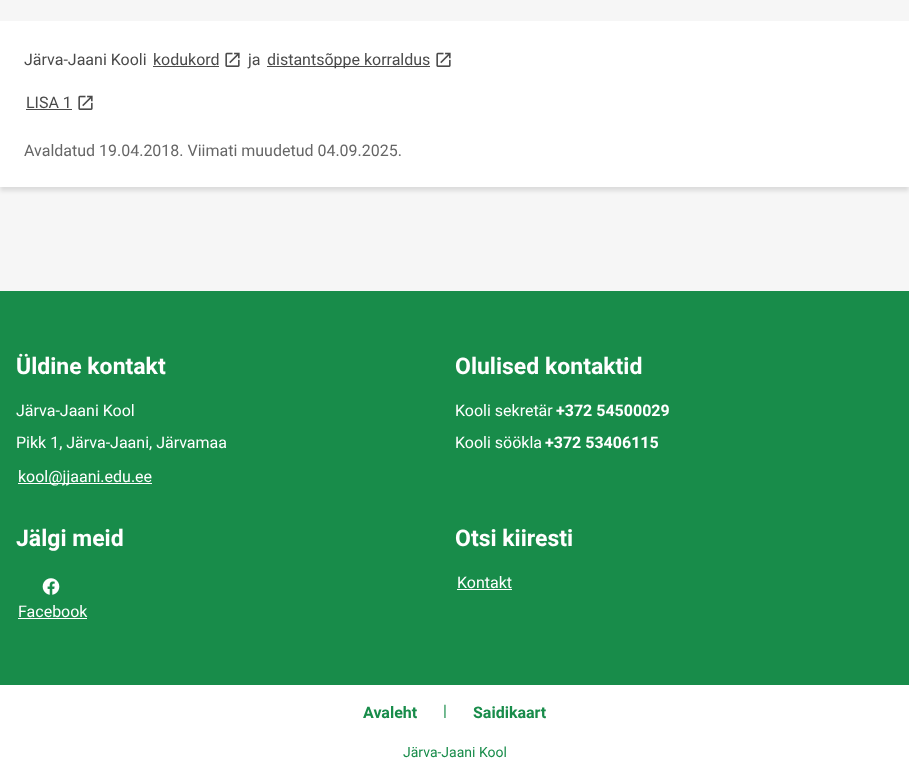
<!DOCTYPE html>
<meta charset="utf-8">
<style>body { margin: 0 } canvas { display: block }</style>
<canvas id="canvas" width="909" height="781"></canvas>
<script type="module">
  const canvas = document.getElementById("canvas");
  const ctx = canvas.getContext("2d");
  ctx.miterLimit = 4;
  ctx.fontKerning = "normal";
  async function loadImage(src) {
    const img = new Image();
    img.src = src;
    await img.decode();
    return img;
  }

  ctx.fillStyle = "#ffffff";
  ctx.fillRect(0, 0, 909, 781);
  ctx.fillStyle = "#f6f6f6";
  ctx.fillRect(0, 0, 909, 291);
  ctx.fillStyle = "rgba(0, 0, 0, 0.1)";
  ctx.filter = "blur(2px)";
  ctx.beginPath();
  ctx.rect(0, 25, 909, 166);
  ctx.fill();
  ctx.filter = "none";
  ctx.fillStyle = "#ffffff";
  ctx.fillRect(0, 21, 909, 166);
  ctx.font = "16px Roboto";
  ctx.fillStyle = "#4a4a4a";
  ctx.fillText("Järva-Jaani Kooli", 24, 65);
  ctx.fillText("kodukord", 153, 65);
  ctx.fillRect(153, 66, 66, 1);
  ctx.drawImage(await loadImage("img1.png"), 225, 52, 15, 15);
  ctx.fillText("ja", 248, 65);
  ctx.fillRect(267, 66, 163, 1);
  ctx.fillText("distantsõppe korraldus", 267, 65);
  ctx.drawImage(await loadImage("img1.png"), 436, 52, 15, 15);
  ctx.fillText("LISA 1", 26, 108);
  ctx.fillRect(26, 109, 46, 1);
  ctx.drawImage(await loadImage("img1.png"), 78, 95, 15, 15);
  ctx.fillStyle = "#666666";
  ctx.fillText("Avaldatud 19.04.2018. Viimati muudetud 04.09.2025.", 24, 156);
  ctx.fillStyle = "#188c4a";
  ctx.fillRect(0, 291, 909, 394);
  ctx.font = "bold 23px Roboto";
  ctx.fillStyle = "#ffffff";
  ctx.fillText("Üldine kontakt", 16, 374);
  ctx.font = "16px Roboto";
  ctx.fillText("Järva-Jaani Kool", 16, 416);
  ctx.fillText("Pikk 1, Järva-Jaani, Järvamaa", 16, 448);
  ctx.fillRect(18, 483, 134, 1);
  ctx.fillText("kool@jjaani.edu.ee", 18, 482);
  ctx.font = "bold 23px Roboto";
  ctx.fillText("Olulised kontaktid", 455, 374);
  ctx.font = "16px Roboto";
  ctx.fillText("Kooli sekretär", 455, 416);
  ctx.font = "bold 16px Roboto";
  ctx.fillText("+372 54500029", 556, 416);
  ctx.font = "16px Roboto";
  ctx.fillText("Kooli söökla", 455, 448);
  ctx.font = "bold 16px Roboto";
  ctx.fillText("+372 53406115", 545, 448);
  ctx.font = "bold 23px Roboto";
  ctx.fillText("Jälgi meid", 16, 546);
  ctx.drawImage(await loadImage("img2.png"), 42, 578, 18, 17);
  ctx.font = "16px Roboto";
  ctx.fillText("Facebook", 18, 617);
  ctx.fillRect(18, 618, 69, 1);
  ctx.font = "bold 23px Roboto";
  ctx.fillText("Otsi kiiresti", 455, 546);
  ctx.font = "16px Roboto";
  ctx.fillText("Kontakt", 457, 588);
  ctx.fillRect(457, 589, 55, 1);
  ctx.font = "bold 16px Roboto";
  ctx.fillStyle = "#188c4a";
  ctx.fillText("Avaleht", 363, 718);
  ctx.font = "16px Roboto";
  ctx.fillText("|", 443, 716);
  ctx.font = "bold 16px Roboto";
  ctx.fillText("Saidikaart", 473, 718);
  ctx.font = "14px Roboto";
  ctx.fillText("Järva-Jaani Kool", 403, 757);
</script>
